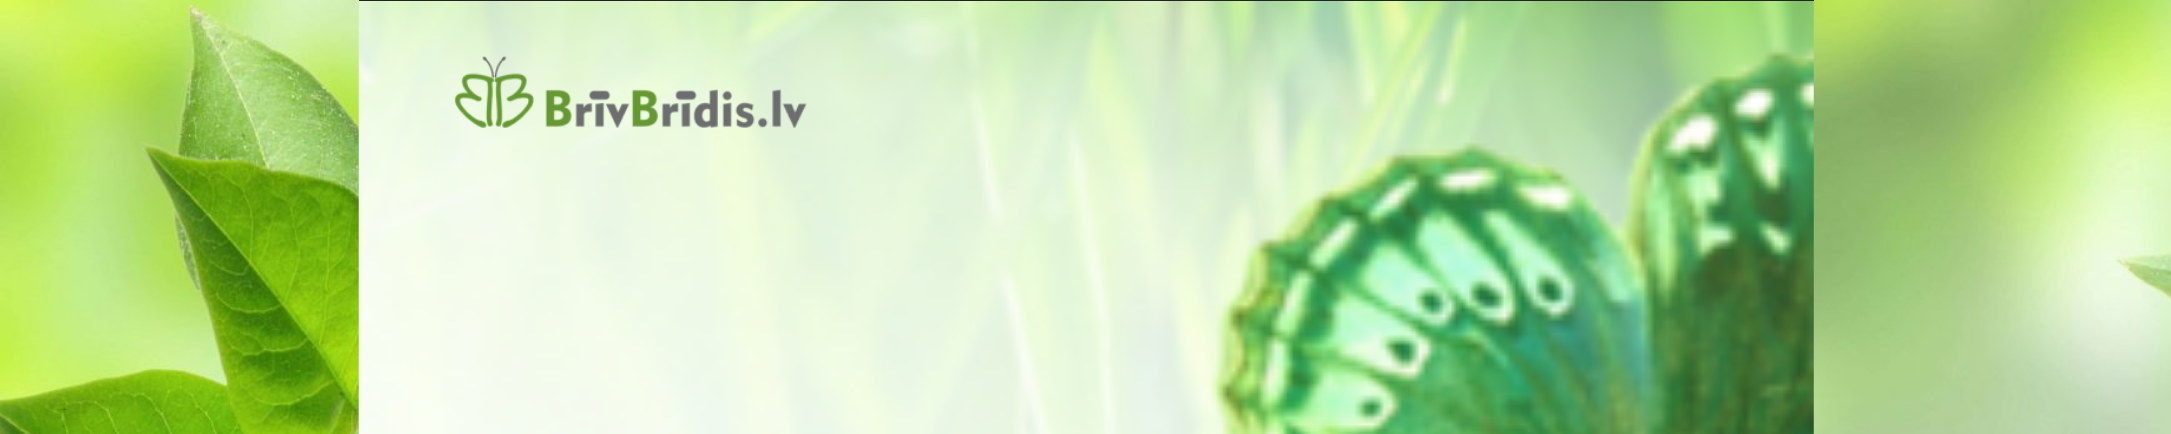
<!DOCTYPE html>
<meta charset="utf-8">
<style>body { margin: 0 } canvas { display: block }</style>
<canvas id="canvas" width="2171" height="434"></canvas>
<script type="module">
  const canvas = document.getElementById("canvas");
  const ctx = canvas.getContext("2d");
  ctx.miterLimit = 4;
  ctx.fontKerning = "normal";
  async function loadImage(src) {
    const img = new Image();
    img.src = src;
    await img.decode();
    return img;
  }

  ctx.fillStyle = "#ffffff";
  ctx.fillRect(0, 0, 2171, 434);
  ctx.drawImage(await loadImage("img1.png"), 0, 0, 2171, 434);
  ctx.drawImage(await loadImage("img2.png"), 358, 0, 1456, 434);
  ctx.fillStyle = "#222222";
  ctx.fillRect(359, 0, 1455, 1);
  ctx.drawImage(await loadImage("img3.png"), 454, 56, 353, 72);
</script>
